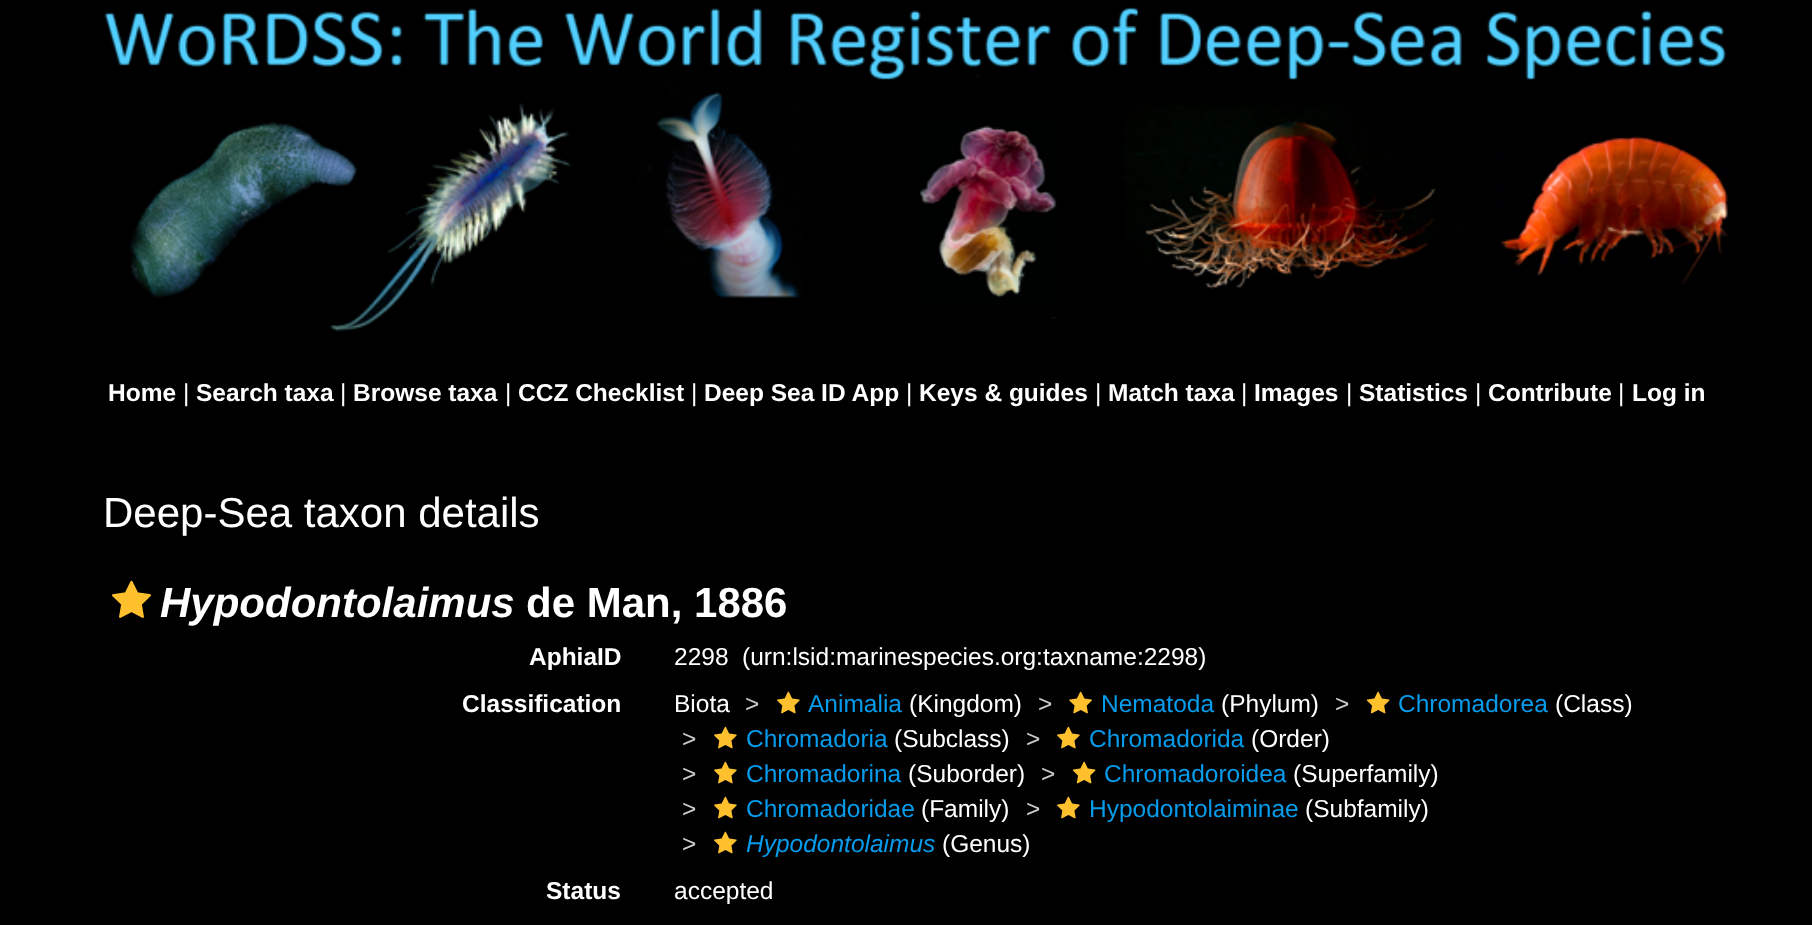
<!DOCTYPE html>
<meta charset="utf-8">
<style>body { margin: 0 } canvas { display: block }</style>
<canvas id="canvas" width="1812" height="925"></canvas>
<script type="module">
  const canvas = document.getElementById("canvas");
  const ctx = canvas.getContext("2d");
  ctx.miterLimit = 4;
  ctx.fontKerning = "normal";
  async function loadImage(src) {
    const img = new Image();
    img.src = src;
    await img.decode();
    return img;
  }

  ctx.fillStyle = "#000000";
  ctx.fillRect(0, 0, 1812, 925);
  ctx.drawImage(await loadImage("img1.png"), 104, 7, 1624, 325);
  ctx.font = "bold 24.5px Liberation Sans";
  ctx.fillStyle = "#ffffff";
  ctx.fillText("Home", 108, 401);
  ctx.font = "24.5px Liberation Sans";
  ctx.fillText("|", 183, 401);
  ctx.font = "bold 24.5px Liberation Sans";
  ctx.fillText("Search taxa", 196, 401);
  ctx.font = "24.5px Liberation Sans";
  ctx.fillText("|", 340, 401);
  ctx.font = "bold 24.5px Liberation Sans";
  ctx.fillText("Browse taxa", 353, 401);
  ctx.font = "24.5px Liberation Sans";
  ctx.fillText("|", 505, 401);
  ctx.font = "bold 24.5px Liberation Sans";
  ctx.fillText("CCZ Checklist", 518, 401);
  ctx.font = "24.5px Liberation Sans";
  ctx.fillText("|", 691, 401);
  ctx.font = "bold 24.5px Liberation Sans";
  ctx.fillText("Deep Sea ID App", 704, 401);
  ctx.font = "24.5px Liberation Sans";
  ctx.fillText("|", 906, 401);
  ctx.font = "bold 24.5px Liberation Sans";
  ctx.fillText("Keys & guides", 919, 401);
  ctx.font = "24.5px Liberation Sans";
  ctx.fillText("|", 1095, 401);
  ctx.font = "bold 24.5px Liberation Sans";
  ctx.fillText("Match taxa", 1108, 401);
  ctx.font = "24.5px Liberation Sans";
  ctx.fillText("|", 1241, 401);
  ctx.font = "bold 24.5px Liberation Sans";
  ctx.fillText("Images", 1254, 401);
  ctx.font = "24.5px Liberation Sans";
  ctx.fillText("|", 1346, 401);
  ctx.font = "bold 24.5px Liberation Sans";
  ctx.fillText("Statistics", 1359, 401);
  ctx.font = "24.5px Liberation Sans";
  ctx.fillText("|", 1475, 401);
  ctx.font = "bold 24.5px Liberation Sans";
  ctx.fillText("Contribute", 1488, 401);
  ctx.font = "24.5px Liberation Sans";
  ctx.fillText("|", 1618, 401);
  ctx.font = "bold 24.5px Liberation Sans";
  ctx.fillText("Log in", 1632, 401);
  ctx.font = "42px Liberation Sans";
  ctx.fillText("Deep-Sea taxon details", 103, 527);
  ctx.drawImage(await loadImage("img2.png"), 112, 580, 39, 38);
  ctx.font = "italic bold 42px Liberation Sans";
  ctx.fillText("Hypodontolaimus", 160, 617);
  ctx.font = "bold 42px Liberation Sans";
  ctx.fillText("de Man, 1886", 526, 617);
  ctx.font = "bold 24.5px Liberation Sans";
  ctx.fillText("AphiaID", 529, 665);
  ctx.font = "24.5px Liberation Sans";
  ctx.fillText("2298", 674, 665);
  ctx.fillText("(urn:lsid:marinespecies.org:taxname:2298)", 742, 665);
  ctx.font = "bold 24.5px Liberation Sans";
  ctx.fillText("Classification", 462, 712);
  ctx.font = "24.5px Liberation Sans";
  ctx.fillText("Biota", 674, 712);
  ctx.fillStyle = "#cccccc";
  ctx.fillText(">", 745, 712);
  ctx.drawImage(await loadImage("img3.png"), 777, 691, 23, 23);
  ctx.fillStyle = "#079beb";
  ctx.fillText("Animalia", 808, 712);
  ctx.fillStyle = "#ffffff";
  ctx.fillText("(Kingdom)", 909, 712);
  ctx.fillStyle = "#cccccc";
  ctx.fillText(">", 1038, 712);
  ctx.drawImage(await loadImage("img4.png"), 1069, 691, 23, 23);
  ctx.fillStyle = "#079beb";
  ctx.fillText("Nematoda", 1101, 712);
  ctx.fillStyle = "#ffffff";
  ctx.fillText("(Phylum)", 1221, 712);
  ctx.fillStyle = "#cccccc";
  ctx.fillText(">", 1335, 712);
  ctx.drawImage(await loadImage("img5.png"), 1366, 691, 24, 23);
  ctx.fillStyle = "#079beb";
  ctx.fillText("Chromadorea", 1398, 712);
  ctx.fillStyle = "#ffffff";
  ctx.fillText("(Class)", 1555, 712);
  ctx.fillStyle = "#cccccc";
  ctx.fillText(">", 682, 747);
  ctx.drawImage(await loadImage("img3.png"), 714, 726, 23, 23);
  ctx.fillStyle = "#079beb";
  ctx.fillText("Chromadoria", 746, 747);
  ctx.fillStyle = "#ffffff";
  ctx.fillText("(Subclass)", 894, 747);
  ctx.fillStyle = "#cccccc";
  ctx.fillText(">", 1026, 747);
  ctx.drawImage(await loadImage("img3.png"), 1057, 726, 23, 23);
  ctx.fillStyle = "#079beb";
  ctx.fillText("Chromadorida", 1089, 747);
  ctx.fillStyle = "#ffffff";
  ctx.fillText("(Order)", 1251, 747);
  ctx.fillStyle = "#cccccc";
  ctx.fillText(">", 682, 782);
  ctx.drawImage(await loadImage("img3.png"), 714, 761, 23, 23);
  ctx.fillStyle = "#079beb";
  ctx.fillText("Chromadorina", 746, 782);
  ctx.fillStyle = "#ffffff";
  ctx.fillText("(Suborder)", 908, 782);
  ctx.fillStyle = "#cccccc";
  ctx.fillText(">", 1041, 782);
  ctx.drawImage(await loadImage("img5.png"), 1072, 761, 24, 23);
  ctx.fillStyle = "#079beb";
  ctx.fillText("Chromadoroidea", 1104, 782);
  ctx.fillStyle = "#ffffff";
  ctx.fillText("(Superfamily)", 1293, 782);
  ctx.fillStyle = "#cccccc";
  ctx.fillText(">", 682, 817);
  ctx.drawImage(await loadImage("img3.png"), 714, 796, 23, 23);
  ctx.fillStyle = "#079beb";
  ctx.fillText("Chromadoridae", 746, 817);
  ctx.fillStyle = "#ffffff";
  ctx.fillText("(Family)", 921, 817);
  ctx.fillStyle = "#cccccc";
  ctx.fillText(">", 1026, 817);
  ctx.drawImage(await loadImage("img3.png"), 1057, 796, 23, 23);
  ctx.fillStyle = "#079beb";
  ctx.fillText("Hypodontolaiminae", 1089, 817);
  ctx.fillStyle = "#ffffff";
  ctx.fillText("(Subfamily)", 1305, 817);
  ctx.fillStyle = "#cccccc";
  ctx.fillText(">", 682, 852);
  ctx.drawImage(await loadImage("img3.png"), 714, 831, 23, 23);
  ctx.font = "italic 24.5px Liberation Sans";
  ctx.fillStyle = "#079beb";
  ctx.fillText("Hypodontolaimus", 746, 852);
  ctx.font = "24.5px Liberation Sans";
  ctx.fillStyle = "#ffffff";
  ctx.fillText("(Genus)", 942, 852);
  ctx.font = "bold 24.5px Liberation Sans";
  ctx.fillText("Status", 546, 899);
  ctx.font = "24.5px Liberation Sans";
  ctx.fillText("accepted", 674, 899);
</script>
